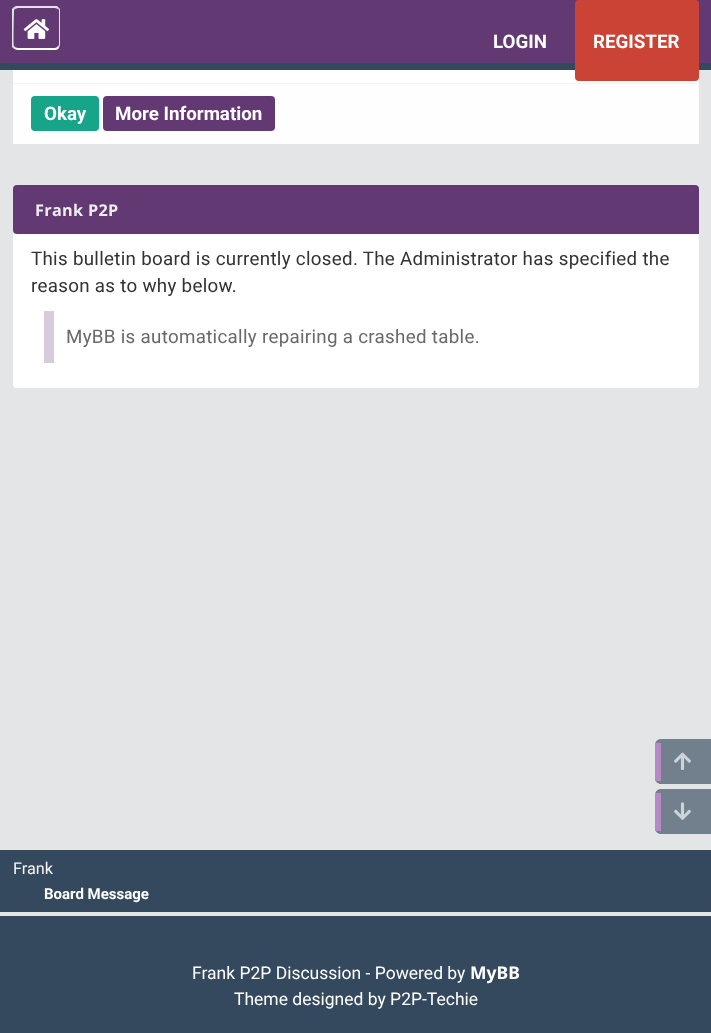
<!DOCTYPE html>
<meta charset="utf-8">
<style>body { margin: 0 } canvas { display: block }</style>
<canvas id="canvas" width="711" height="1033"></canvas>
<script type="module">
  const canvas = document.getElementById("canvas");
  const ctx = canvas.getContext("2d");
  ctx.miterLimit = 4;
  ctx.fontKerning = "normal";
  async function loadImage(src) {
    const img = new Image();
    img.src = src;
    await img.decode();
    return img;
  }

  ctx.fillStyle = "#e4e5e6";
  ctx.fillRect(0, 0, 711, 1033);
  ctx.fillStyle = "#633974";
  ctx.fillRect(0, 0, 711, 63);
  ctx.fillStyle = "#34495e";
  ctx.fillRect(0, 63, 711, 7);
  ctx.fillStyle = "#e1e4e6";
  ctx.beginPath();
  ctx.moveTo(18, 8);
  ctx.lineTo(15, 9);
  ctx.lineTo(14, 7);
  ctx.lineTo(16, 6);
  ctx.lineTo(57, 6);
  ctx.lineTo(59, 8);
  ctx.lineTo(58, 9);
  ctx.lineTo(55, 8);
  ctx.closePath();
  ctx.fill();
  ctx.beginPath();
  ctx.moveTo(60, 45);
  ctx.lineTo(60, 11);
  ctx.bezierCurveTo(60, 10, 60, 8, 59, 8);
  ctx.lineTo(58, 9);
  ctx.lineTo(59, 10);
  ctx.lineTo(59, 45);
  ctx.lineTo(58, 46);
  ctx.lineTo(59, 48);
  ctx.closePath();
  ctx.fill();
  ctx.fillStyle = "#ffffff";
  ctx.beginPath();
  ctx.moveTo(18, 50);
  ctx.lineTo(55, 50);
  ctx.bezierCurveTo(57, 50, 58, 49, 59, 48);
  ctx.lineTo(58, 46);
  ctx.bezierCurveTo(57, 47, 56, 48, 55, 48);
  ctx.lineTo(18, 48);
  ctx.bezierCurveTo(16, 48, 15, 47, 14, 46);
  ctx.lineTo(13, 48);
  ctx.bezierCurveTo(15, 49, 16, 50, 18, 50);
  ctx.closePath();
  ctx.fill();
  ctx.fillStyle = "#e1e4e6";
  ctx.beginPath();
  ctx.moveTo(12, 9);
  ctx.lineTo(14, 7);
  ctx.lineTo(15, 9);
  ctx.lineTo(14, 10);
  ctx.bezierCurveTo(14, 13, 13, 45, 14, 46);
  ctx.lineTo(13, 48);
  ctx.lineTo(12, 47);
  ctx.closePath();
  ctx.fill();
  ctx.drawImage(await loadImage("img1.png"), 23, 19, 26, 20);
  ctx.font = "bold 18.75px Roboto";
  ctx.fillStyle = "#ffffff";
  ctx.fillText("LOGIN", 493, 48);
  ctx.fillRect(13, 70, 686, 13);
  ctx.fillStyle = "#cb4335";
  ctx.beginPath();
  ctx.roundRect(575, 0, 124, 81, 4);
  ctx.fill();
  ctx.fillStyle = "#ffffff";
  ctx.fillText("REGISTER", 593, 48);
  ctx.fillStyle = "#f2f3f4";
  ctx.fillRect(13, 83, 686, 1);
  ctx.fillStyle = "#fefefe";
  ctx.fillRect(13, 84, 686, 60);
  ctx.fillStyle = "#17a589";
  ctx.beginPath();
  ctx.roundRect(31, 96, 68, 35, 4);
  ctx.fill();
  ctx.fillStyle = "#ffffff";
  ctx.fillText("Okay", 44, 120);
  ctx.fillStyle = "#633974";
  ctx.beginPath();
  ctx.roundRect(103, 96, 172, 35, 4);
  ctx.fill();
  ctx.fillStyle = "#ffffff";
  ctx.fillText("More Information", 115, 120);
  ctx.beginPath();
  ctx.roundRect(13, 185, 686, 203, 4);
  ctx.fill();
  ctx.fillStyle = "#633974";
  ctx.beginPath();
  ctx.roundRect(13, 185, 686, 49, [4, 4, 0, 4]);
  ctx.fill();
  ctx.letterSpacing = "0.3px";
  ctx.font = "bold 16.25px Open Sans";
  ctx.fillStyle = "#eeeeee";
  ctx.fillText("Frank P2P", 35, 216);
  ctx.fillStyle = "rgba(246, 246, 246, 0.16)";
  ctx.fillRect(13, 387, 686, 1);
  ctx.font = "18.75px Roboto";
  ctx.fillStyle = "#333333";
  ctx.fillText("This bulletin board is currently closed. The Administrator has specified the", 31, 265);
  ctx.fillText("reason as to why below.", 31, 292);
  ctx.fillStyle = "#d7ccdb";
  ctx.fillRect(44, 311, 10, 52);
  ctx.fillStyle = "#696969";
  ctx.fillText("MyBB is automatically repairing a crashed table.", 66, 343);
  ctx.fillStyle = "#72808e";
  ctx.beginPath();
  ctx.moveTo(661, 739);
  ctx.lineTo(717, 739);
  ctx.lineTo(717, 784);
  ctx.lineTo(661, 784);
  ctx.bezierCurveTo(657.5, 784, 655, 781.5, 655, 778);
  ctx.lineTo(655, 745);
  ctx.bezierCurveTo(655, 741.5, 657.5, 739, 661, 739);
  ctx.closePath();
  ctx.fill();
  ctx.fillStyle = "#b58ac7";
  ctx.fillRect(655, 743, 6, 38);
  ctx.drawImage(await loadImage("img2.png"), 674, 752, 17, 18);
  ctx.fillStyle = "#72808e";
  ctx.beginPath();
  ctx.moveTo(661, 789);
  ctx.lineTo(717, 789);
  ctx.lineTo(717, 834);
  ctx.lineTo(661, 834);
  ctx.bezierCurveTo(657.5, 834, 655, 831.5, 655, 828);
  ctx.lineTo(655, 795);
  ctx.bezierCurveTo(655, 791.5, 657.5, 789, 661, 789);
  ctx.closePath();
  ctx.fill();
  ctx.fillStyle = "#b58ac7";
  ctx.fillRect(655, 793, 6, 38);
  ctx.drawImage(await loadImage("img3.png"), 674, 802, 17, 18);
  ctx.fillStyle = "#34495e";
  ctx.fillRect(0, 850, 711, 62);
  ctx.letterSpacing = "0px";
  ctx.font = "16.25px Roboto";
  ctx.fillStyle = "#f6f6f6";
  ctx.fillText("Frank", 13, 874);
  ctx.font = "bold 15px Roboto";
  ctx.fillStyle = "#ffffff";
  ctx.fillText("Board Message", 44, 899);
  ctx.fillStyle = "#34495e";
  ctx.fillRect(0, 916, 711, 117);
  ctx.font = "17.5px Roboto";
  ctx.fillStyle = "#ffffff";
  ctx.fillText("Frank P2P Discussion - Powered by", 192, 979);
  ctx.font = "bold 17.5px Noto Sans";
  ctx.fillText("MyBB", 470, 979);
  ctx.font = "17.5px Roboto";
  ctx.fillText("Theme designed by P2P-Techie", 234, 1005);
</script>
